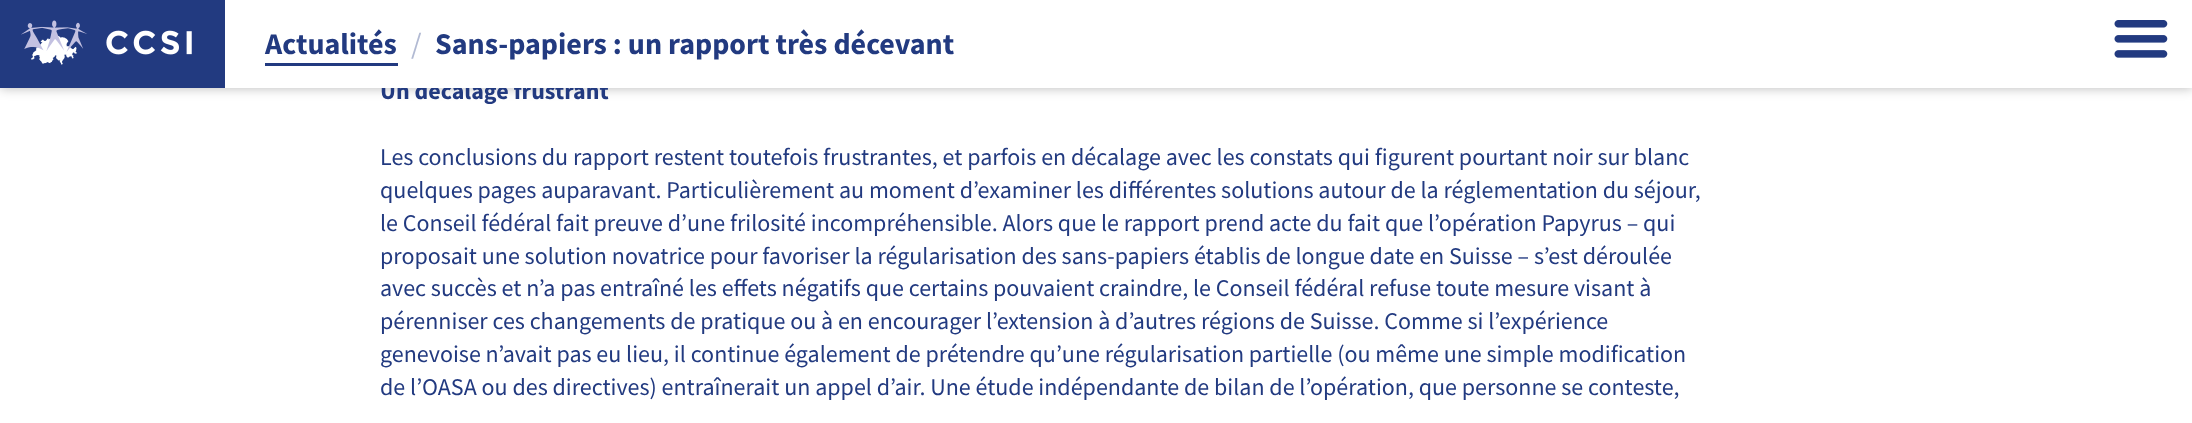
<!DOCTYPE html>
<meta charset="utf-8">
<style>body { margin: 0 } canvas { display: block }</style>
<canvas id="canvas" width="2192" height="423"></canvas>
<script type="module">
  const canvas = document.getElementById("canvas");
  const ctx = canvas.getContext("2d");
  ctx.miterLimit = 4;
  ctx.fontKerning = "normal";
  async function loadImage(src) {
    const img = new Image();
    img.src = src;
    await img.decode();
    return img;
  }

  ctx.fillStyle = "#ffffff";
  ctx.fillRect(0, 0, 2192, 423);
  ctx.fillStyle = "rgba(0, 0, 0, 0.28)";
  ctx.filter = "blur(6px)";
  ctx.beginPath();
  ctx.rect(0, 0, 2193, 88);
  ctx.fill();
  ctx.filter = "none";
  ctx.font = "bold 24px Source Sans Pro";
  ctx.fillStyle = "#223a80";
  ctx.fillText("Un décalage frustrant", 380, 99);
  ctx.fillStyle = "#ffffff";
  ctx.fillRect(225, 0, 1967, 88);
  ctx.fillStyle = "#223a80";
  ctx.fillRect(0, 0, 225, 88);
  ctx.drawImage(await loadImage("img1.png"), 21, 20, 171, 45);
  ctx.font = "bold 30px Source Sans Pro";
  ctx.fillText("Actualités", 265, 54);
  ctx.fillRect(265, 63, 133, 3);
  ctx.font = "30px Source Sans Pro";
  ctx.fillStyle = "#b2bad3";
  ctx.fillText("/", 411, 54);
  ctx.font = "bold 30px Source Sans Pro";
  ctx.fillStyle = "#223a80";
  ctx.fillText("Sans-papiers : un rapport très décevant", 435, 54);
  ctx.drawImage(await loadImage("img2.png"), 2114, 20, 54, 38);
  ctx.font = "24px Source Sans Pro";
  ctx.fillText("Les conclusions du rapport restent toutefois frustrantes, et parfois en décalage avec les constats qui figurent pourtant noir sur blanc", 380, 165);
  ctx.fillText("quelques pages auparavant. Particulièrement au moment d’examiner les différentes solutions autour de la réglementation du séjour,", 380, 198);
  ctx.fillText("le Conseil fédéral fait preuve d’une frilosité incompréhensible. Alors que le rapport prend acte du fait que l’opération Papyrus – qui", 380, 231);
  ctx.fillText("proposait une solution novatrice pour favoriser la régularisation des sans-papiers établis de longue date en Suisse – s’est déroulée", 380, 264);
  ctx.fillText("avec succès et n’a pas entraîné les effets négatifs que certains pouvaient craindre, le Conseil fédéral refuse toute mesure visant à", 380, 296);
  ctx.fillText("pérenniser ces changements de pratique ou à en encourager l’extension à d’autres régions de Suisse. Comme si l’expérience", 380, 329);
  ctx.fillText("genevoise n’avait pas eu lieu, il continue également de prétendre qu’une régularisation partielle (ou même une simple modification", 380, 362);
  ctx.fillText("de l’OASA ou des directives) entraînerait un appel d’air. Une étude indépendante de bilan de l’opération, que personne se conteste,", 380, 395);
</script>
